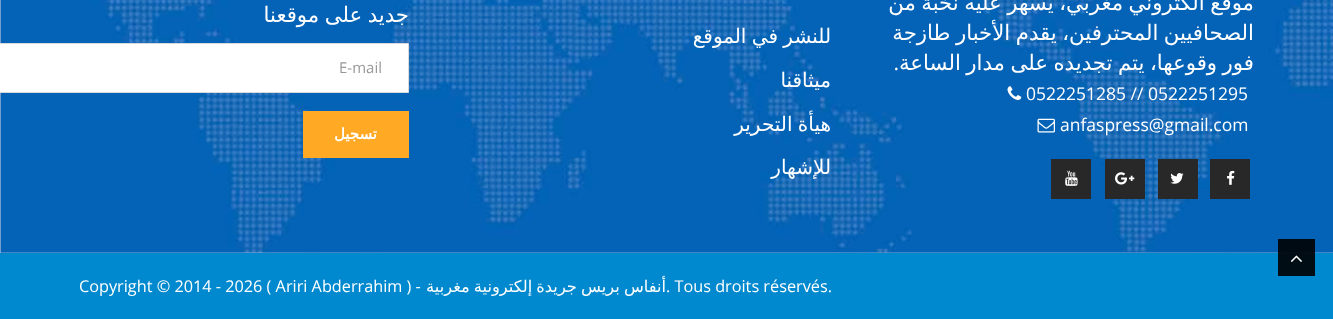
<!DOCTYPE html>
<meta charset="utf-8">
<style>body { margin: 0 } canvas { display: block }</style>
<canvas id="canvas" width="1333" height="319"></canvas>
<script type="module">
  const canvas = document.getElementById("canvas");
  const ctx = canvas.getContext("2d");
  ctx.miterLimit = 4;
  ctx.fontKerning = "normal";
  async function loadImage(src) {
    const img = new Image();
    img.src = src;
    await img.decode();
    return img;
  }

  ctx.fillStyle = "#ffffff";
  ctx.fillRect(0, 0, 1333, 319);
  ctx.drawImage(await loadImage("img1.png"), 0, 252, 1333, 1);
  ctx.drawImage(await loadImage("img2.png"), 0, 0, 1333, 253);
  ctx.wordSpacing = "-1.25px";
  ctx.direction = "rtl";
  ctx.font = "21.25px DejaVu Sans";
  ctx.fillText("موقع الكتروني مغربي، يسهر عليه نخبة من", 1254, 10);
  ctx.fillText("الصحافيين المحترفين، يقدم الأخبار طازجة", 1254, 40);
  ctx.fillText("فور وقوعها، يتم تجديده على مدار الساعة", 1254, 70);
  ctx.wordSpacing = "0px";
  ctx.font = "21.25px Open Sans";
  ctx.fillText(".", 899, 70);
  ctx.direction = "ltr";
  ctx.font = "17.5px Open Sans";
  ctx.fillText("0522251285 // 0522251295", 1026, 100);
  ctx.drawImage(await loadImage("img3.png"), 1007, 86, 15, 14);
  ctx.fillText("anfaspress@gmail.com", 1060, 131);
  ctx.drawImage(await loadImage("img4.png"), 1037, 118, 18, 15);
  ctx.fillStyle = "#282828";
  ctx.fillRect(1210, 159, 40, 40);
  ctx.drawImage(await loadImage("img5.png"), 1227, 170, 8, 15);
  ctx.fillRect(1158, 159, 40, 40);
  ctx.drawImage(await loadImage("img6.png"), 1170, 173, 14, 11);
  ctx.fillRect(1105, 159, 40, 40);
  ctx.drawImage(await loadImage("img7.png"), 1115, 172, 20, 13);
  ctx.fillRect(1051, 159, 40, 40);
  ctx.drawImage(await loadImage("img8.png"), 1065, 170, 13, 16);
  ctx.wordSpacing = "-1px";
  ctx.direction = "rtl";
  ctx.font = "20px DejaVu Sans";
  ctx.fillStyle = "#ffffff";
  ctx.fillText("للنشر في الموقع", 831, 43);
  ctx.wordSpacing = "0px";
  ctx.fillText("ميثاقنا", 831, 87);
  ctx.wordSpacing = "-1px";
  ctx.fillText("هيأة التحرير", 831, 131);
  ctx.wordSpacing = "0px";
  ctx.fillText("للإشهار", 831, 174);
  ctx.wordSpacing = "-1.25px";
  ctx.font = "21.25px DejaVu Sans";
  ctx.fillText("جديد على موقعنا", 409, 22);
  ctx.beginPath();
  ctx.rect(-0.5, 43.5, 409, 49);
  ctx.fill();
  ctx.strokeStyle = "#dadada";
  ctx.stroke();
  ctx.wordSpacing = "0px";
  ctx.direction = "ltr";
  ctx.font = "15px Open Sans";
  ctx.fillStyle = "#999999";
  ctx.fillText("E-mail", 339, 73);
  ctx.fillStyle = "#ffa925";
  ctx.fillRect(303, 111, 106, 47);
  ctx.direction = "rtl";
  ctx.font = "bold 15px DejaVu Sans";
  ctx.fillStyle = "#ffffff";
  ctx.fillText("تسجيل", 377, 139);
  ctx.fillStyle = "#0089ce";
  ctx.fillRect(0, 253, 1333, 66);
  ctx.fillStyle = "rgba(0, 0, 0, 0.9)";
  ctx.fillRect(1278, 239, 37, 37);
  ctx.drawImage(await loadImage("img9.png"), 1290, 255, 12, 7);
  ctx.wordSpacing = "-1px";
  ctx.font = "16.25px DejaVu Sans";
  ctx.fillStyle = "#ffffff";
  ctx.fillText("أنفاس بريس جريدة إلكترونية مغربية", 666, 292);
  ctx.wordSpacing = "0px";
  ctx.direction = "ltr";
  ctx.font = "16.25px Open Sans";
  ctx.fillText(". Tous droits réservés.", 666, 292);
  ctx.fillText("Copyright © 2014 - 2026 ( Ariri Abderrahim ) -", 79, 292);
</script>
